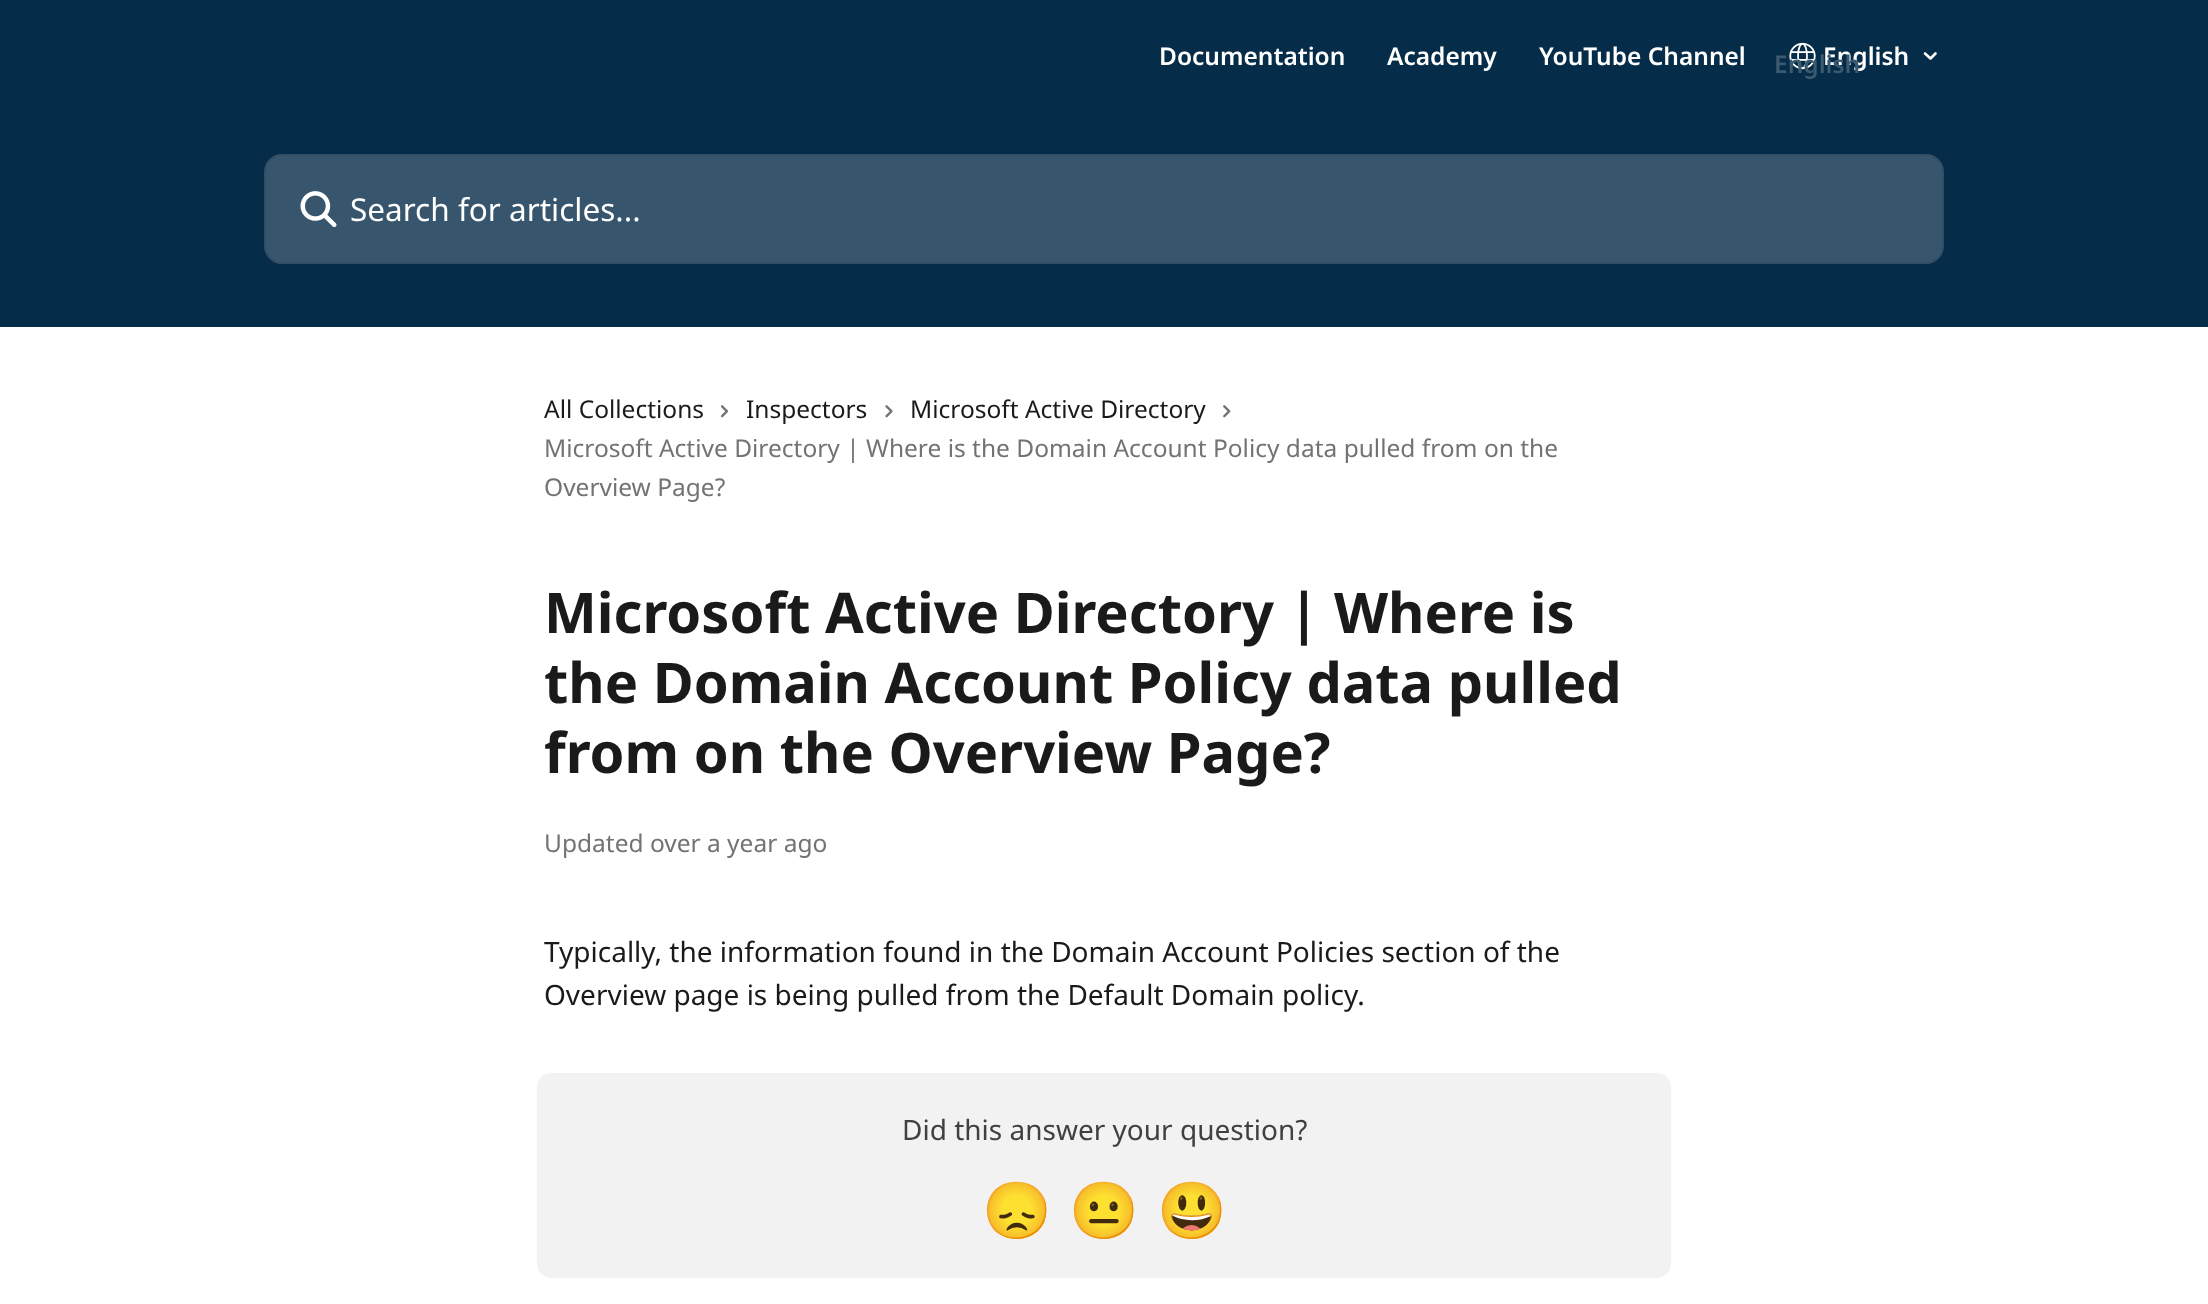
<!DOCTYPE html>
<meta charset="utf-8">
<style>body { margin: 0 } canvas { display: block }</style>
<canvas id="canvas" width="2208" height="1304"></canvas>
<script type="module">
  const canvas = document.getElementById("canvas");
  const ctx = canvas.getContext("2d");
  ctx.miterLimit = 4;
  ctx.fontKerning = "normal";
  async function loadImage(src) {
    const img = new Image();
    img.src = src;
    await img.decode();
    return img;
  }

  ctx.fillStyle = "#ffffff";
  ctx.fillRect(0, 0, 2208, 1304);
  ctx.fillStyle = "#052c48";
  ctx.fillRect(0, 0, 2208, 327);
  ctx.font = "600 24.5px Noto Sans";
  ctx.fillStyle = "#ffffff";
  ctx.fillText("Documentation", 1159, 65);
  ctx.fillText("Academy", 1387, 65);
  ctx.fillText("YouTube Channel", 1539, 65);
  ctx.drawImage(await loadImage("img1.png"), 1789, 42, 27, 28);
  ctx.fillText("English", 1823, 65);
  ctx.fillStyle = "#3b5a70";
  ctx.fillText("English", 1774, 73);
  ctx.beginPath();
  ctx.moveTo(1925, 53.5);
  ctx.lineTo(1930.5, 58.5);
  ctx.lineTo(1935.5, 53.5);
  ctx.strokeStyle = "#ffffff";
  ctx.lineWidth = 2.6;
  ctx.lineCap = "round";
  ctx.lineJoin = "round";
  ctx.stroke();
  ctx.fillStyle = "#37566d";
  ctx.beginPath();
  ctx.roundRect(264, 154, 1680, 110, 18);
  ctx.fill();
  ctx.beginPath();
  ctx.roundRect(265, 155, 1678, 108, 17);
  ctx.strokeStyle = "rgba(0, 0, 0, 0.08)";
  ctx.lineWidth = 2;
  ctx.lineJoin = "miter";
  ctx.stroke();
  ctx.drawImage(await loadImage("img2.png"), 300, 191, 37, 37);
  ctx.font = "31.5px Noto Sans";
  ctx.fillStyle = "#ffffff";
  ctx.fillText("Search for articles...", 350, 221);
  ctx.font = "24.5px Noto Sans";
  ctx.fillStyle = "#1a1a1a";
  ctx.fillText("All Collections", 544, 418);
  ctx.drawImage(await loadImage("img3.png"), 720, 405, 9, 13);
  ctx.fillText("Inspectors", 746, 418);
  ctx.drawImage(await loadImage("img4.png"), 885, 405, 8, 13);
  ctx.fillText("Microsoft Active Directory", 910, 418);
  ctx.drawImage(await loadImage("img5.png"), 1223, 405, 8, 13);
  ctx.fillStyle = "#737373";
  ctx.fillText("Microsoft Active Directory | Where is the Domain Account Policy data pulled from on the", 544, 457);
  ctx.fillText("Overview Page?", 544, 496);
  ctx.font = "bold 56px Noto Sans";
  ctx.fillStyle = "#1a1a1a";
  ctx.fillText("Microsoft Active Directory | Where is", 544, 633);
  ctx.fillText("the Domain Account Policy data pulled", 544, 703);
  ctx.fillText("from on the Overview Page?", 544, 773);
  ctx.font = "24.5px Noto Sans";
  ctx.fillStyle = "#737373";
  ctx.fillText("Updated over a year ago", 544, 852);
  ctx.font = "28px Noto Sans";
  ctx.fillStyle = "#1a1a1a";
  ctx.fillText("Typically, the information found in the Domain Account Policies section of the", 544, 962);
  ctx.fillText("Overview page is being pulled from the Default Domain policy.", 544, 1005);
  ctx.fillStyle = "#f2f2f2";
  ctx.beginPath();
  ctx.roundRect(537, 1073, 1134, 205, 14);
  ctx.fill();
  ctx.fillStyle = "#404040";
  ctx.fillText("Did this answer your question?", 902, 1140);
  ctx.font = "56px Noto Color Emoji";
  ctx.fillText("😞", 982, 1230);
  ctx.fillText("😐", 1069, 1230);
  ctx.fillText("😃", 1157, 1230);
</script>
